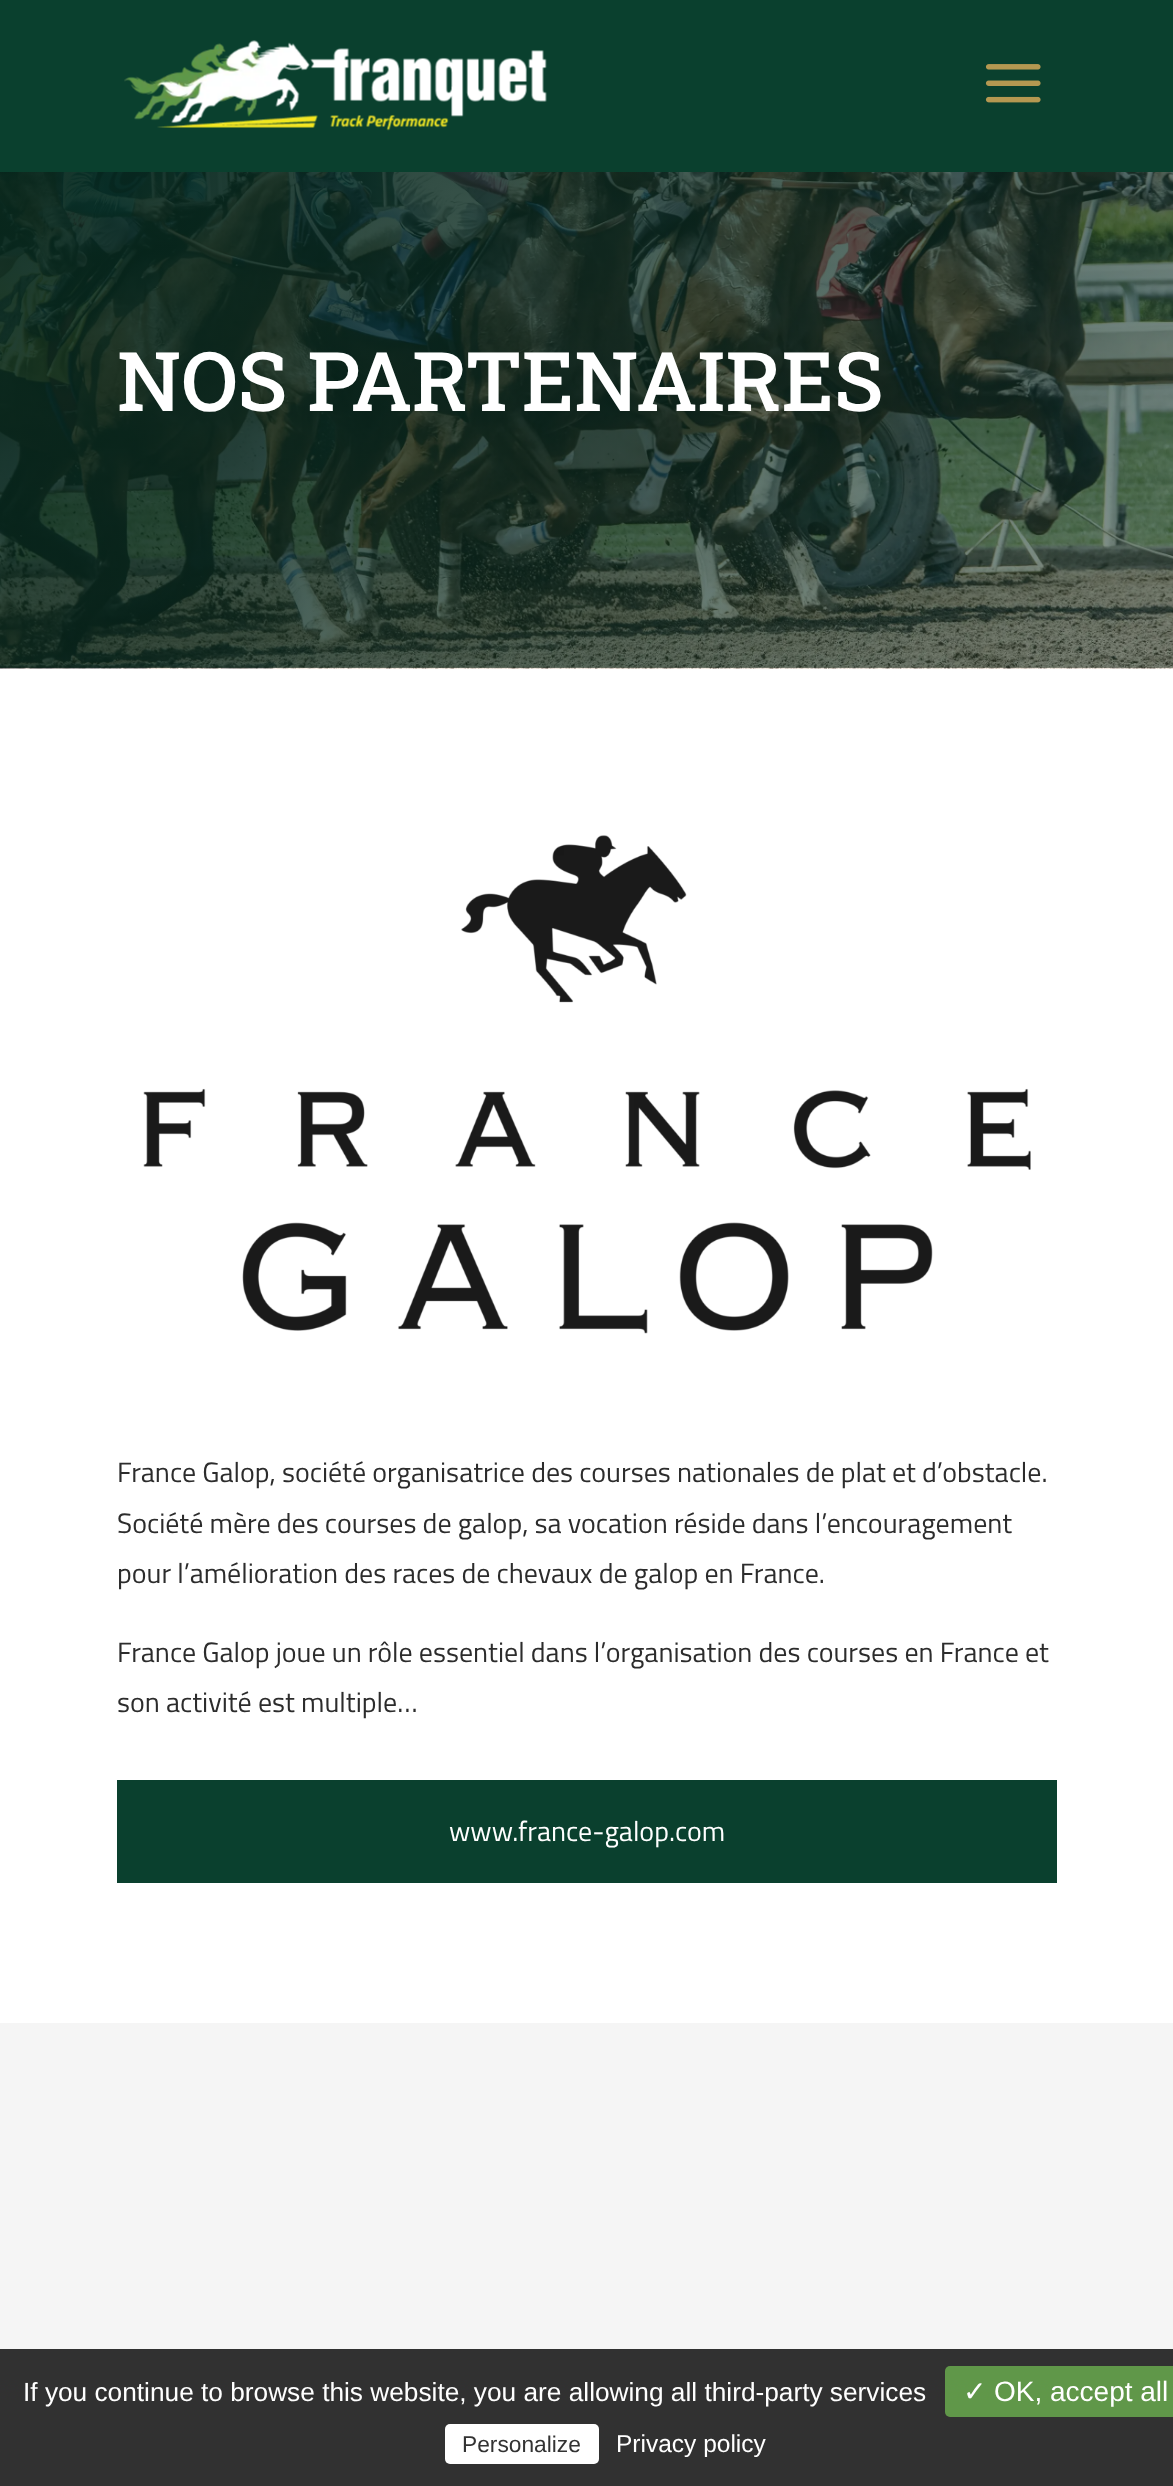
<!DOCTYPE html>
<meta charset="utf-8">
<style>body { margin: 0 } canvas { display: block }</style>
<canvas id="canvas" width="1173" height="2486"></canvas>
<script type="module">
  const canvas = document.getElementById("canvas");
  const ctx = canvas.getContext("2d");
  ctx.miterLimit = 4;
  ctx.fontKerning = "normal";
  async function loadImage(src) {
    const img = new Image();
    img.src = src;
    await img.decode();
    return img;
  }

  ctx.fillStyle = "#ffffff";
  ctx.fillRect(0, 0, 1173, 2486);
  ctx.fillStyle = "#0a402e";
  ctx.fillRect(0, 0, 1173, 172);
  ctx.drawImage(await loadImage("img1.png"), 124, 40, 423, 91);
  ctx.drawImage(await loadImage("img2.png"), 985, 64, 56, 39);
  ctx.drawImage(await loadImage("img3.png"), 0, 172, 1173, 497);
  ctx.font = "500 82.25px Roboto Slab";
  ctx.fillStyle = "#ffffff";
  ctx.fillText("NOS PARTENAIRES", 117, 411);
  ctx.drawImage(await loadImage("img4.png"), 143, 835, 888, 499);
  ctx.font = "28px Titillium Web";
  ctx.fillStyle = "#2c2c2c";
  ctx.fillText("France Galop, société organisatrice des courses nationales de plat et d’obstacle.", 117, 1482);
  ctx.fillText("Société mère des courses de galop, sa vocation réside dans l’encouragement", 117, 1533);
  ctx.fillText("pour l’amélioration des races de chevaux de galop en France.", 117, 1583);
  ctx.fillText("France Galop joue un rôle essentiel dans l’organisation des courses en France et", 117, 1662);
  ctx.fillText("son activité est multiple…", 117, 1712);
  ctx.fillStyle = "#0a402e";
  ctx.fillRect(117, 1780, 940, 103);
  ctx.fillStyle = "#ffffff";
  ctx.fillText("www.france-galop.com", 449, 1841);
  ctx.fillStyle = "#f5f5f5";
  ctx.fillRect(0, 2023, 1173, 326);
  ctx.fillStyle = "#313131";
  ctx.fillRect(0, 2349, 1173, 137);
  ctx.font = "26.25px Liberation Sans";
  ctx.fillStyle = "#ffffff";
  ctx.fillText("If you continue to browse this website, you are allowing all third-party services", 23, 2401);
  ctx.fillStyle = "#609749";
  ctx.beginPath();
  ctx.roundRect(945, 2366, 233, 51, 5);
  ctx.fill();
  ctx.font = "28px DejaVu Sans";
  ctx.fillStyle = "#ffffff";
  ctx.fillText("✓", 963, 2401);
  ctx.font = "28px Liberation Sans";
  ctx.fillText("OK, accept all", 994, 2401);
  ctx.beginPath();
  ctx.roundRect(445, 2424, 154, 40, 5);
  ctx.fill();
  ctx.font = "22.75px Liberation Sans";
  ctx.fillStyle = "#333333";
  ctx.fillText("Personalize", 462, 2452);
  ctx.font = "24.5px Liberation Sans";
  ctx.fillStyle = "#ffffff";
  ctx.fillText("Privacy policy", 616, 2452);
</script>
